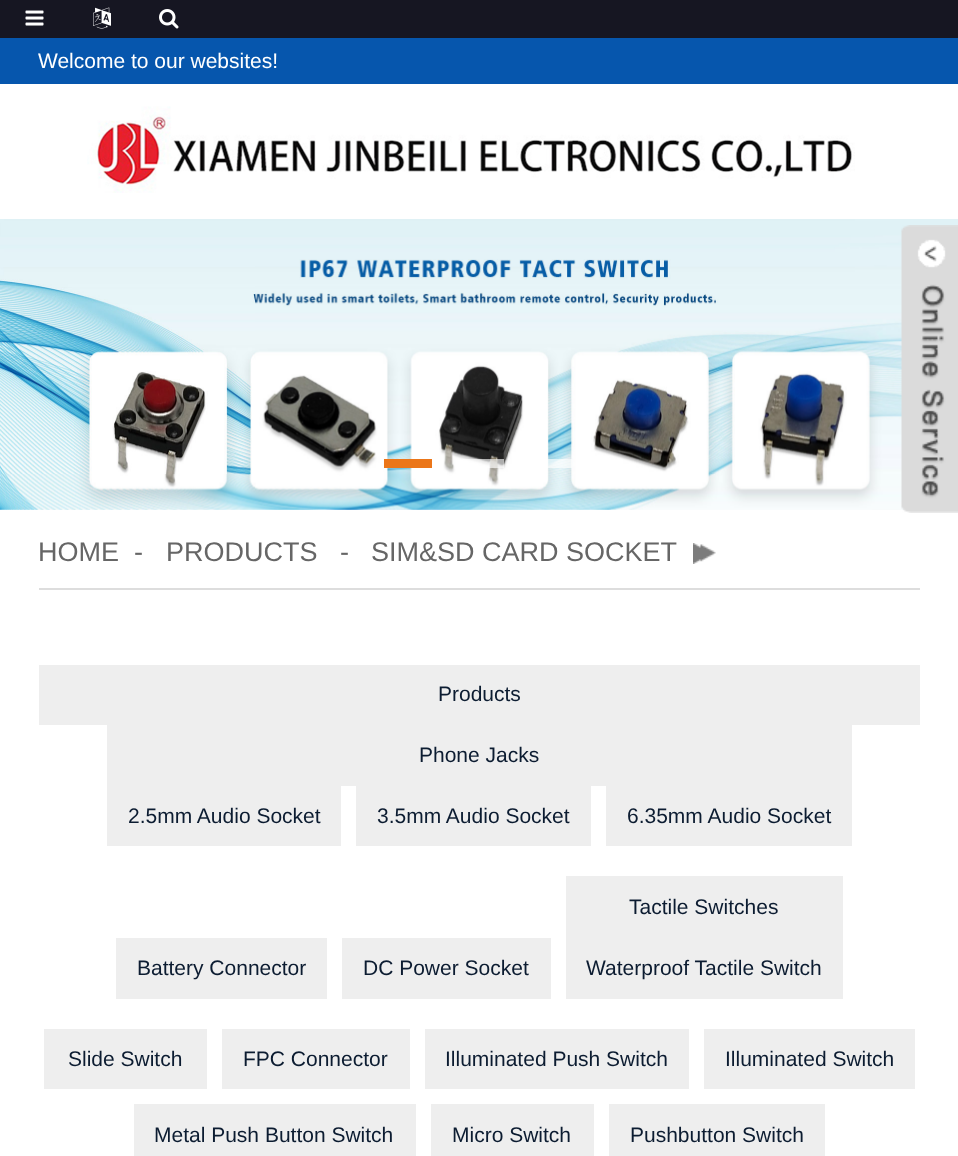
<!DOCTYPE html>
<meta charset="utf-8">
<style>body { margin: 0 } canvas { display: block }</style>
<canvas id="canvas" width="958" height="1156"></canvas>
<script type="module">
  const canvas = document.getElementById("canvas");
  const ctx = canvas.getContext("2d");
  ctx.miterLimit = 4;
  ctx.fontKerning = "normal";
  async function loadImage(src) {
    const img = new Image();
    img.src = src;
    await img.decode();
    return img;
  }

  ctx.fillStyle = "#ffffff";
  ctx.fillRect(0, 0, 958, 1156);
  ctx.fillStyle = "#161622";
  ctx.fillRect(0, 0, 958, 38);
  ctx.drawImage(await loadImage("img1.png"), 25, 10, 19, 16);
  ctx.drawImage(await loadImage("img2.png"), 93, 7, 18, 22);
  ctx.drawImage(await loadImage("img3.png"), 159, 9, 20, 20);
  ctx.fillStyle = "#0656ad";
  ctx.fillRect(0, 38, 958, 46);
  ctx.font = "21px Liberation Sans";
  ctx.fillStyle = "#ffffff";
  ctx.fillText("Welcome to our websites!", 38, 68);
  ctx.drawImage(await loadImage("img4.png"), 87, 106, 768, 87);
  ctx.drawImage(await loadImage("img6.png"), 0, 509, 907, 1);
  ctx.drawImage(await loadImage("img5.png"), 0, 219, 958, 291);
  ctx.fillStyle = "#eb7619";
  ctx.fillRect(384, 459, 48, 9);
  ctx.fillStyle = "rgba(255, 255, 255, 0.63)";
  ctx.fillRect(463, 459, 41, 9);
  ctx.fillRect(547, 459, 25, 9);
  ctx.drawImage(await loadImage("img7.png"), 901, 225, 57, 288);
  ctx.fillStyle = "#dddddd";
  ctx.fillRect(39, 588, 881, 2);
  ctx.font = "27px Liberation Sans";
  ctx.fillStyle = "#666666";
  ctx.fillText("HOME", 38, 561);
  ctx.fillText("-", 134, 561);
  ctx.fillText("PRODUCTS", 166, 561);
  ctx.fillText("-", 340, 561);
  ctx.fillText("SIM&SD CARD SOCKET", 371, 561);
  ctx.drawImage(await loadImage("img8.png"), 693, 543, 23, 21);
  ctx.fillStyle = "#eeeeee";
  ctx.fillRect(39, 665, 881, 60);
  ctx.font = "21px Liberation Sans";
  ctx.fillStyle = "#0c1c31";
  ctx.fillText("Products", 438, 701);
  ctx.fillStyle = "#eeeeee";
  ctx.fillRect(107, 725, 745, 61);
  ctx.fillStyle = "#0c1c31";
  ctx.fillText("Phone Jacks", 419, 762);
  ctx.fillStyle = "#eeeeee";
  ctx.fillRect(107, 786, 234, 60);
  ctx.fillStyle = "#0c1c31";
  ctx.fillText("2.5mm Audio Socket", 128, 823);
  ctx.fillStyle = "#eeeeee";
  ctx.fillRect(356, 786, 235, 60);
  ctx.fillStyle = "#0c1c31";
  ctx.fillText("3.5mm Audio Socket", 377, 823);
  ctx.fillStyle = "#eeeeee";
  ctx.fillRect(606, 786, 246, 60);
  ctx.fillStyle = "#0c1c31";
  ctx.fillText("6.35mm Audio Socket", 627, 823);
  ctx.fillStyle = "#eeeeee";
  ctx.fillRect(116, 938, 211, 61);
  ctx.fillStyle = "#0c1c31";
  ctx.fillText("Battery Connector", 137, 975);
  ctx.fillStyle = "#eeeeee";
  ctx.fillRect(342, 938, 209, 61);
  ctx.fillStyle = "#0c1c31";
  ctx.fillText("DC Power Socket", 363, 975);
  ctx.fillStyle = "#eeeeee";
  ctx.fillRect(566, 876, 277, 123);
  ctx.fillStyle = "#0c1c31";
  ctx.fillText("Tactile Switches", 629, 914);
  ctx.fillText("Waterproof Tactile Switch", 586, 975);
  ctx.fillStyle = "#eeeeee";
  ctx.fillRect(44, 1029, 163, 60);
  ctx.fillStyle = "#0c1c31";
  ctx.fillText("Slide Switch", 68, 1066);
  ctx.fillStyle = "#eeeeee";
  ctx.fillRect(222, 1029, 188, 60);
  ctx.fillStyle = "#0c1c31";
  ctx.fillText("FPC Connector", 243, 1066);
  ctx.fillStyle = "#eeeeee";
  ctx.fillRect(425, 1029, 264, 60);
  ctx.fillStyle = "#0c1c31";
  ctx.fillText("Illuminated Push Switch", 445, 1066);
  ctx.fillStyle = "#eeeeee";
  ctx.fillRect(704, 1029, 211, 60);
  ctx.fillStyle = "#0c1c31";
  ctx.fillText("Illuminated Switch", 725, 1066);
  ctx.fillStyle = "#eeeeee";
  ctx.fillRect(134, 1104, 282, 52);
  ctx.fillStyle = "#0c1c31";
  ctx.fillText("Metal Push Button Switch", 154, 1142);
  ctx.fillStyle = "#eeeeee";
  ctx.fillRect(431, 1104, 163, 52);
  ctx.fillStyle = "#0c1c31";
  ctx.fillText("Micro Switch", 452, 1142);
  ctx.fillStyle = "#eeeeee";
  ctx.fillRect(609, 1104, 216, 52);
  ctx.fillStyle = "#0c1c31";
  ctx.fillText("Pushbutton Switch", 630, 1142);
</script>
